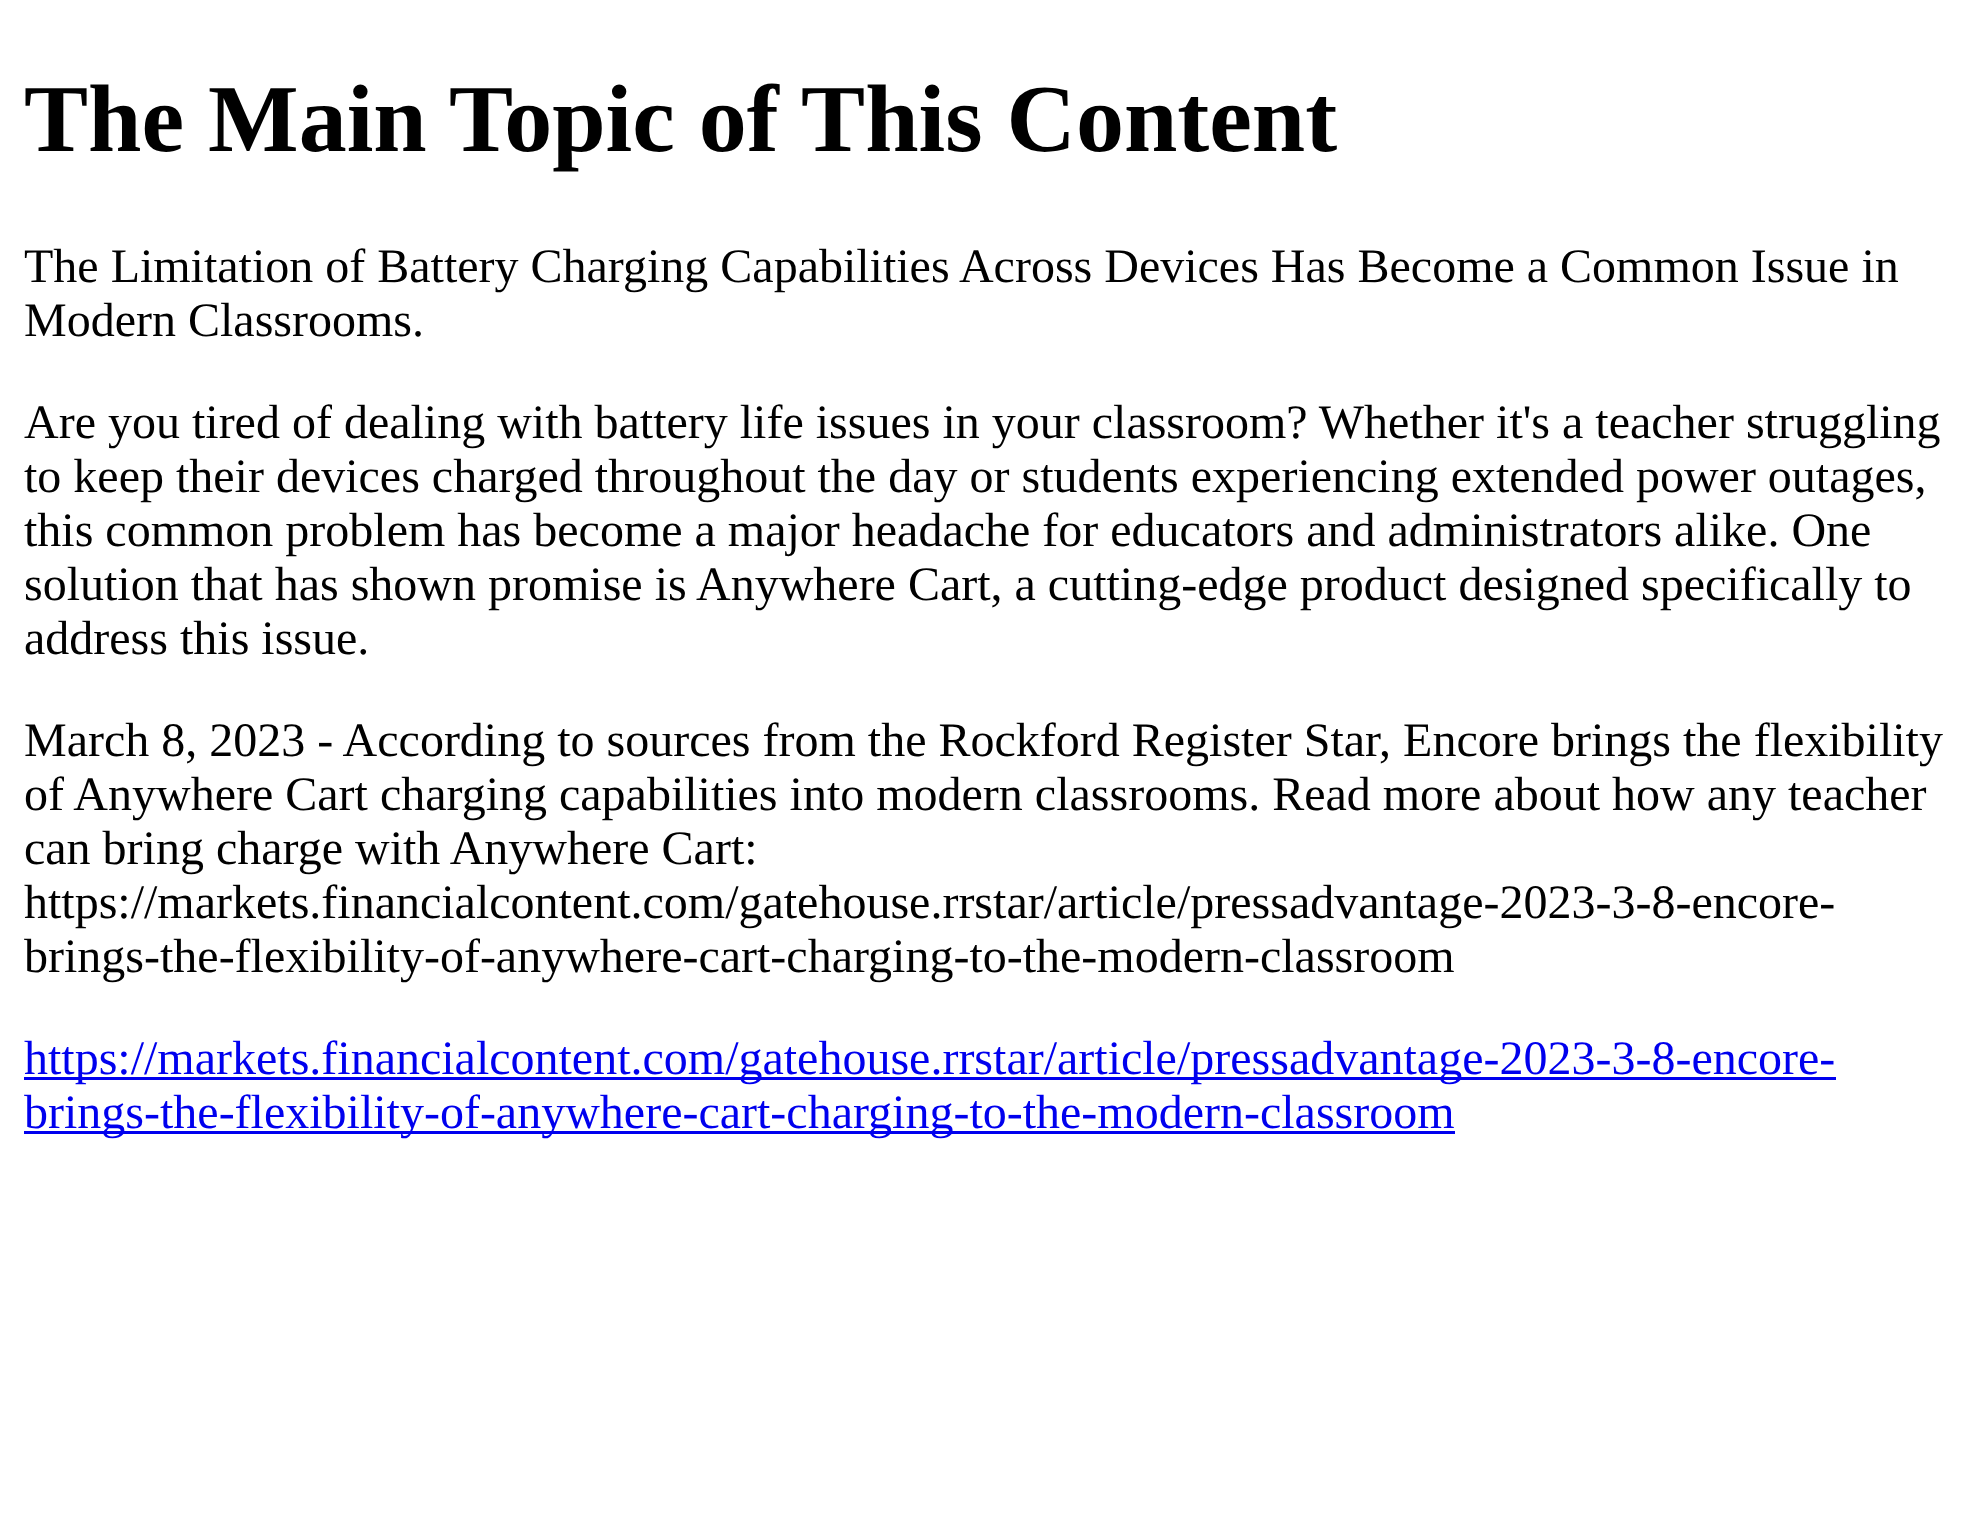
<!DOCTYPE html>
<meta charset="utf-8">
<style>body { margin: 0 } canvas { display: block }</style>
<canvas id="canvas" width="1987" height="1514"></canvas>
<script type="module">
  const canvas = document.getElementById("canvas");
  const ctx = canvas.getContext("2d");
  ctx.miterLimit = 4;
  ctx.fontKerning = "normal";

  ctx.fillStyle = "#ffffff";
  ctx.fillRect(0, 0, 1987, 1514);
  ctx.font = "bold 96px Liberation Serif";
  ctx.fillStyle = "#000000";
  ctx.fillText("The Main Topic of This Content", 24, 151);
  ctx.font = "48px Liberation Serif";
  ctx.fillText("The Limitation of Battery Charging Capabilities Across Devices Has Become a Common Issue in", 24, 282);
  ctx.fillText("Modern Classrooms.", 24, 336);
  ctx.fillText("Are you tired of dealing with battery life issues in your classroom? Whether it's a teacher struggling", 24, 438);
  ctx.fillText("to keep their devices charged throughout the day or students experiencing extended power outages,", 24, 492);
  ctx.fillText("this common problem has become a major headache for educators and administrators alike. One", 24, 546);
  ctx.fillText("solution that has shown promise is Anywhere Cart, a cutting-edge product designed specifically to", 24, 600);
  ctx.fillText("address this issue.", 24, 654);
  ctx.fillText("March 8, 2023 - According to sources from the Rockford Register Star, Encore brings the flexibility", 24, 756);
  ctx.fillText("of Anywhere Cart charging capabilities into modern classrooms. Read more about how any teacher", 24, 810);
  ctx.fillText("can bring charge with Anywhere Cart:", 24, 864);
  ctx.fillText("https://markets.financialcontent.com/gatehouse.rrstar/article/pressadvantage-2023-3-8-encore-", 24, 918);
  ctx.fillText("brings-the-flexibility-of-anywhere-cart-charging-to-the-modern-classroom", 24, 972);
  ctx.fillStyle = "#0000ee";
  ctx.fillRect(24, 1077, 1812, 3);
  ctx.fillText("https://markets.financialcontent.com/gatehouse.rrstar/article/pressadvantage-2023-3-8-encore-", 24, 1074);
  ctx.fillRect(24, 1131, 1431, 3);
  ctx.fillText("brings-the-flexibility-of-anywhere-cart-charging-to-the-modern-classroom", 24, 1128);
</script>
